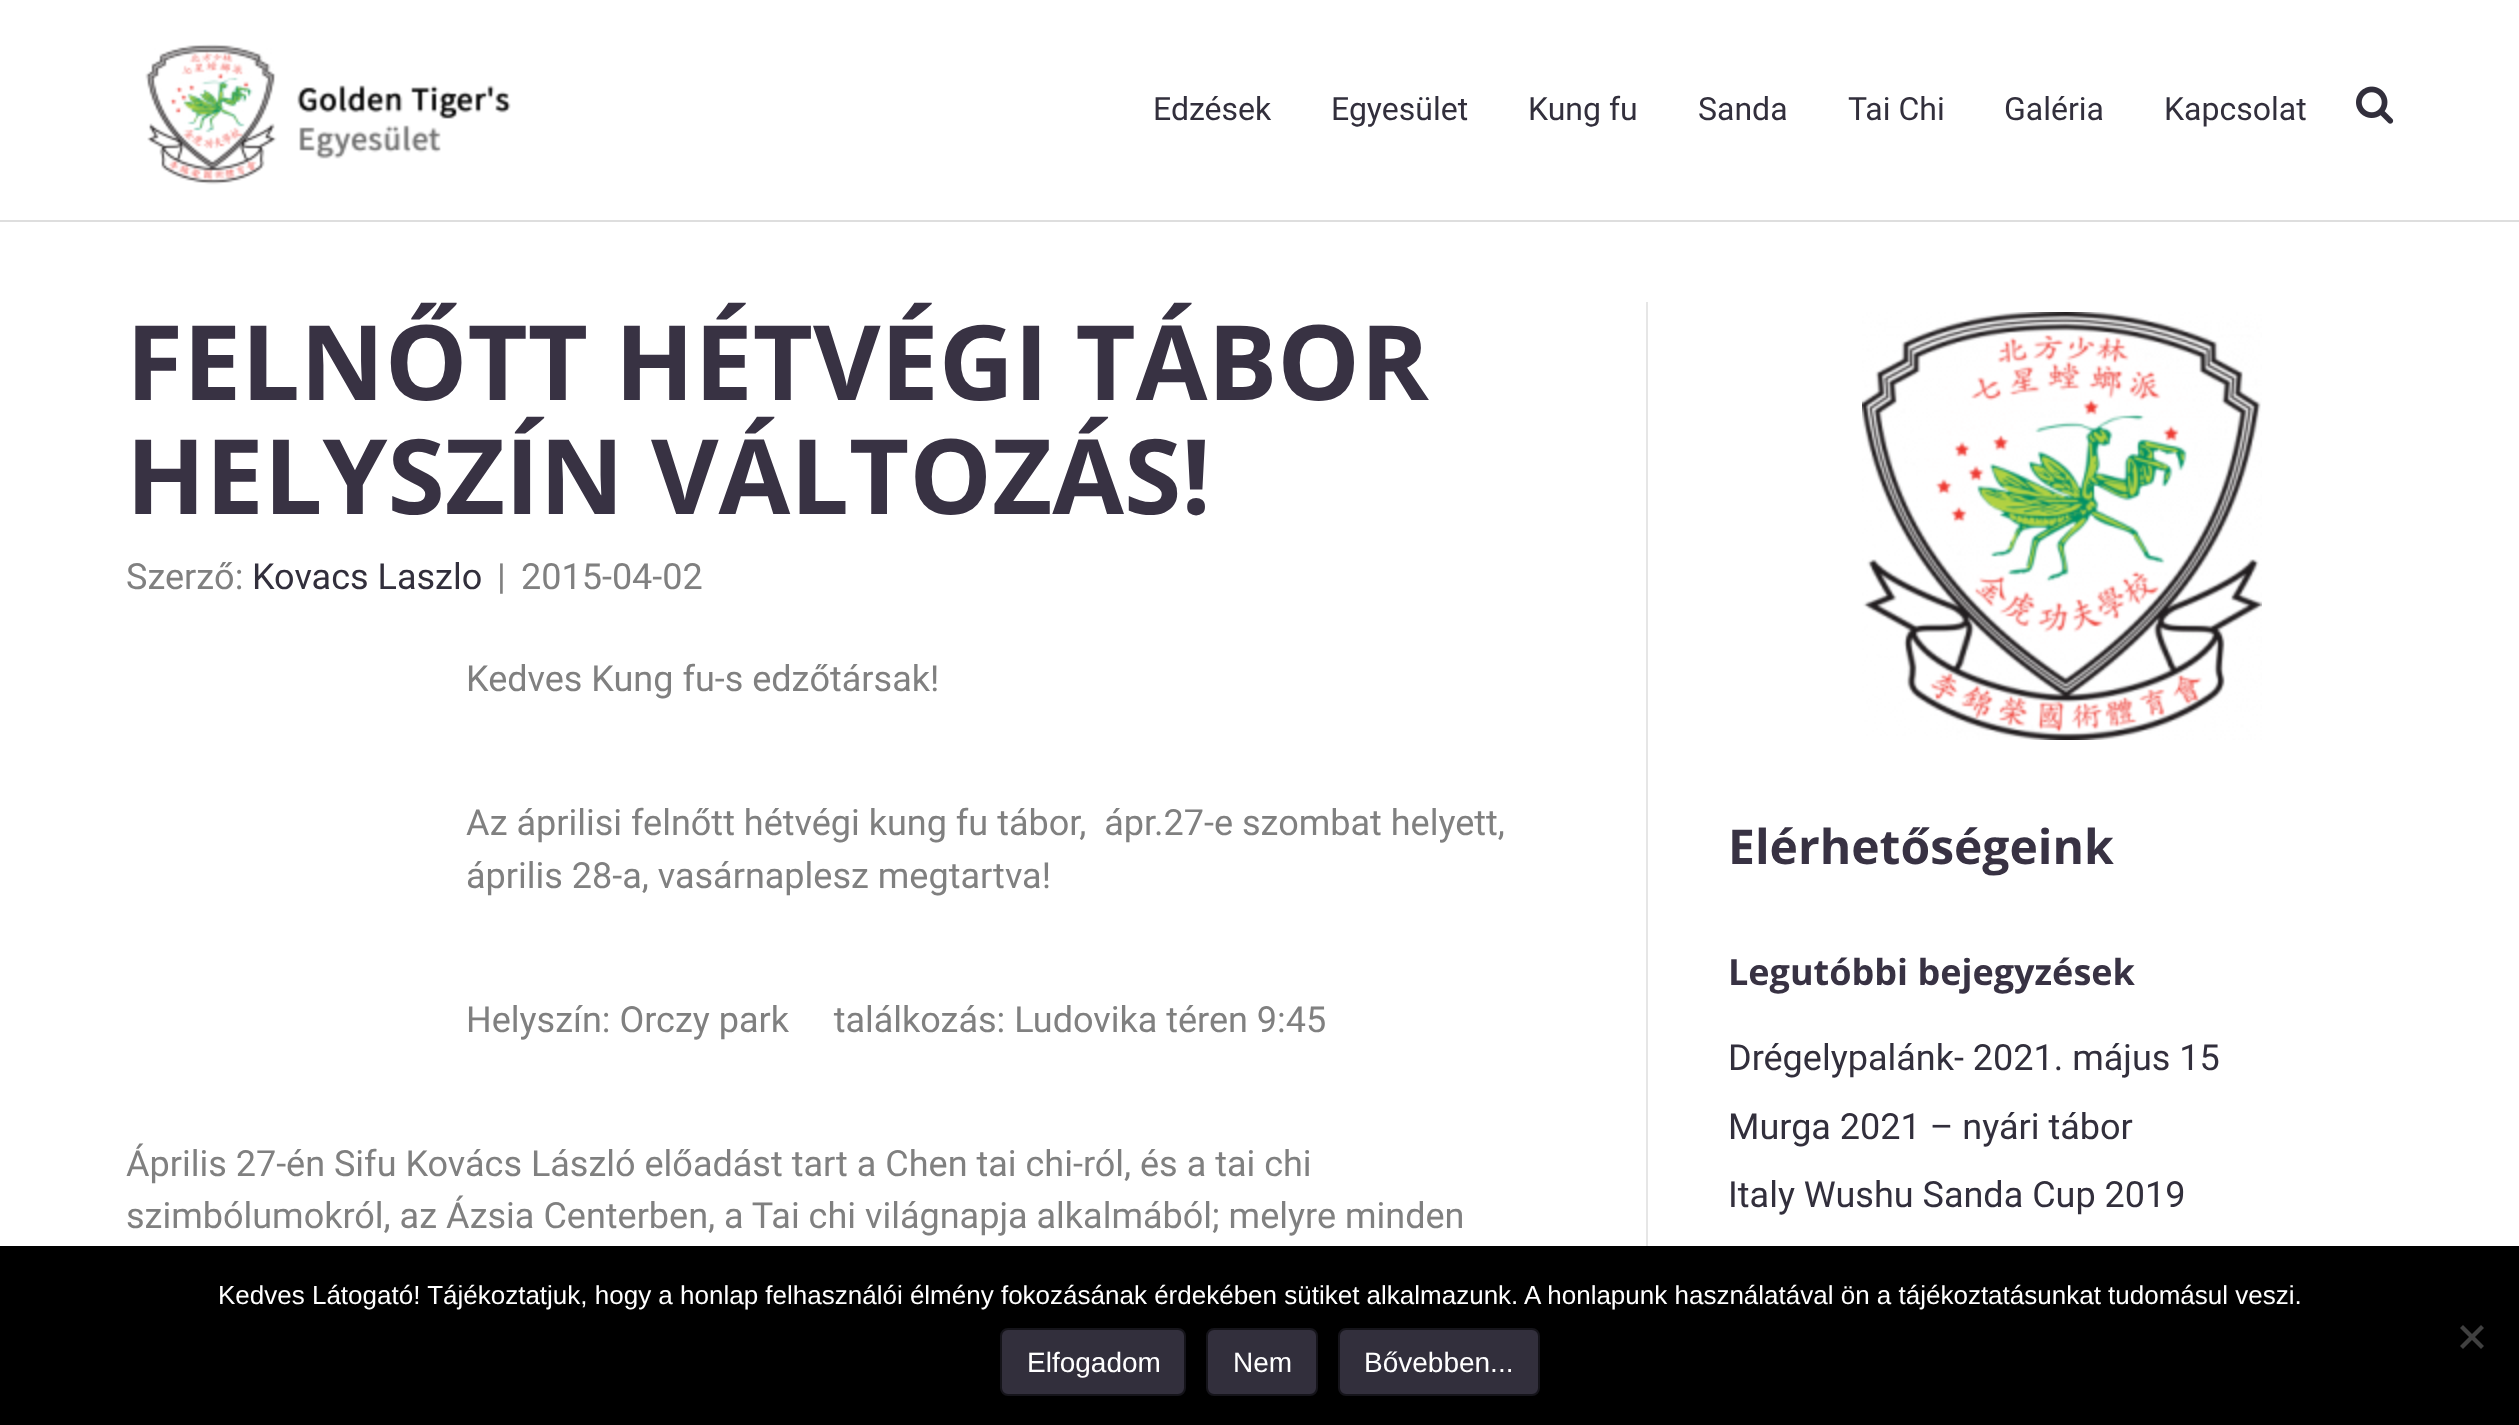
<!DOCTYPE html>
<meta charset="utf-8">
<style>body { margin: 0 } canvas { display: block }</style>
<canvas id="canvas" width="2519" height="1425"></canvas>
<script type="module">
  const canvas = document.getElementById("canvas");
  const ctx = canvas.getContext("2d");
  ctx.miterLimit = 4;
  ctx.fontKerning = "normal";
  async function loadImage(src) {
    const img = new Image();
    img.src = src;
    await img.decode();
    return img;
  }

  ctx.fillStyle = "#ffffff";
  ctx.fillRect(0, 0, 2519, 1425);
  ctx.fillStyle = "#dedede";
  ctx.fillRect(0, 220, 2519, 2);
  ctx.drawImage(await loadImage("img1.png"), 145, 44, 366, 141);
  ctx.font = "32px Roboto";
  ctx.fillStyle = "#322f3c";
  ctx.fillText("Edzések", 1153, 120);
  ctx.fillText("Egyesület", 1331, 120);
  ctx.fillText("Kung fu", 1528, 120);
  ctx.fillText("Sanda", 1698, 120);
  ctx.fillText("Tai Chi", 1848, 120);
  ctx.fillText("Galéria", 2004, 120);
  ctx.fillText("Kapcsolat", 2164, 120);
  ctx.drawImage(await loadImage("img2.png"), 2356, 86, 38, 38);
  ctx.fillStyle = "#e6e6e6";
  ctx.fillRect(1646, 302, 2, 944);
  ctx.font = "bold 104px Open Sans";
  ctx.fillStyle = "#383243";
  ctx.fillText("FELNŐTT HÉTVÉGI TÁBOR", 126, 400);
  ctx.fillText("HELYSZÍN VÁLTOZÁS!", 126, 514);
  ctx.font = "36px Roboto";
  ctx.fillStyle = "#808080";
  ctx.fillText("Szerző:", 126, 589);
  ctx.fillStyle = "#322f3c";
  ctx.fillText("Kovacs Laszlo", 252, 589);
  ctx.fillStyle = "#808080";
  ctx.fillText("|", 497, 589);
  ctx.fillText("2015-04-02", 521, 589);
  ctx.fillText("Kedves Kung fu-s edzőtársak!", 466, 691);
  ctx.fillText("Az áprilisi felnőtt hétvégi kung fu tábor,  ápr.27-e szombat helyett,", 466, 835);
  ctx.fillText("április 28-a, vasárnaplesz megtartva!", 466, 888);
  ctx.fillText("Helyszín: Orczy park     találkozás: Ludovika téren 9:45", 466, 1032);
  ctx.fillText("Április 27-én Sifu Kovács László előadást tart a Chen tai chi-ról, és a tai chi", 126, 1176);
  ctx.fillText("szimbólumokról, az Ázsia Centerben, a Tai chi világnapja alkalmából; melyre minden", 126, 1228);
  ctx.drawImage(await loadImage("img3.png"), 1862, 312, 400, 428);
  ctx.font = "bold 48px Open Sans";
  ctx.fillStyle = "#383243";
  ctx.fillText("Elérhetőségeink", 1728, 864);
  ctx.font = "bold 36px Open Sans";
  ctx.fillText("Legutóbbi bejegyzések", 1728, 985);
  ctx.font = "36px Roboto";
  ctx.fillStyle = "#322f3c";
  ctx.fillText("Drégelypalánk- 2021. május 15", 1728, 1070);
  ctx.fillText("Murga 2021 – nyári tábor", 1728, 1139);
  ctx.fillText("Italy Wushu Sanda Cup 2019", 1728, 1207);
  ctx.fillStyle = "#000000";
  ctx.fillRect(0, 1246, 2519, 179);
  ctx.font = "26px Liberation Sans";
  ctx.fillStyle = "#ffffff";
  ctx.fillText("Kedves Látogató! Tájékoztatjuk, hogy a honlap felhasználói élmény fokozásának érdekében sütiket alkalmazunk. A honlapunk használatával ön a tájékoztatásunkat tudomásul veszi.", 218, 1304);
  ctx.fillStyle = "#404040";
  ctx.beginPath();
  ctx.moveTo(2481, 1325);
  ctx.lineTo(2484, 1328);
  ctx.lineTo(2463, 1349);
  ctx.lineTo(2460, 1346);
  ctx.closePath();
  ctx.fill();
  ctx.beginPath();
  ctx.moveTo(2460, 1328);
  ctx.lineTo(2463, 1325);
  ctx.lineTo(2484, 1346);
  ctx.lineTo(2481, 1349);
  ctx.closePath();
  ctx.fill();
  ctx.fillStyle = "#322f3c";
  ctx.beginPath();
  ctx.roundRect(1001, 1329, 184, 66, 7);
  ctx.fill();
  ctx.strokeStyle = "#15141a";
  ctx.lineWidth = 2;
  ctx.stroke();
  ctx.font = "28px Liberation Sans";
  ctx.fillStyle = "#ffffff";
  ctx.fillText("Elfogadom", 1027, 1372);
  ctx.fillStyle = "#322f3c";
  ctx.beginPath();
  ctx.roundRect(1207, 1329, 110, 66, 7);
  ctx.fill();
  ctx.stroke();
  ctx.fillStyle = "#ffffff";
  ctx.fillText("Nem", 1233, 1372);
  ctx.fillStyle = "#322f3c";
  ctx.beginPath();
  ctx.roundRect(1339, 1329, 200, 66, 7);
  ctx.fill();
  ctx.stroke();
  ctx.fillStyle = "#ffffff";
  ctx.fillText("Bővebben...", 1364, 1372);
</script>
